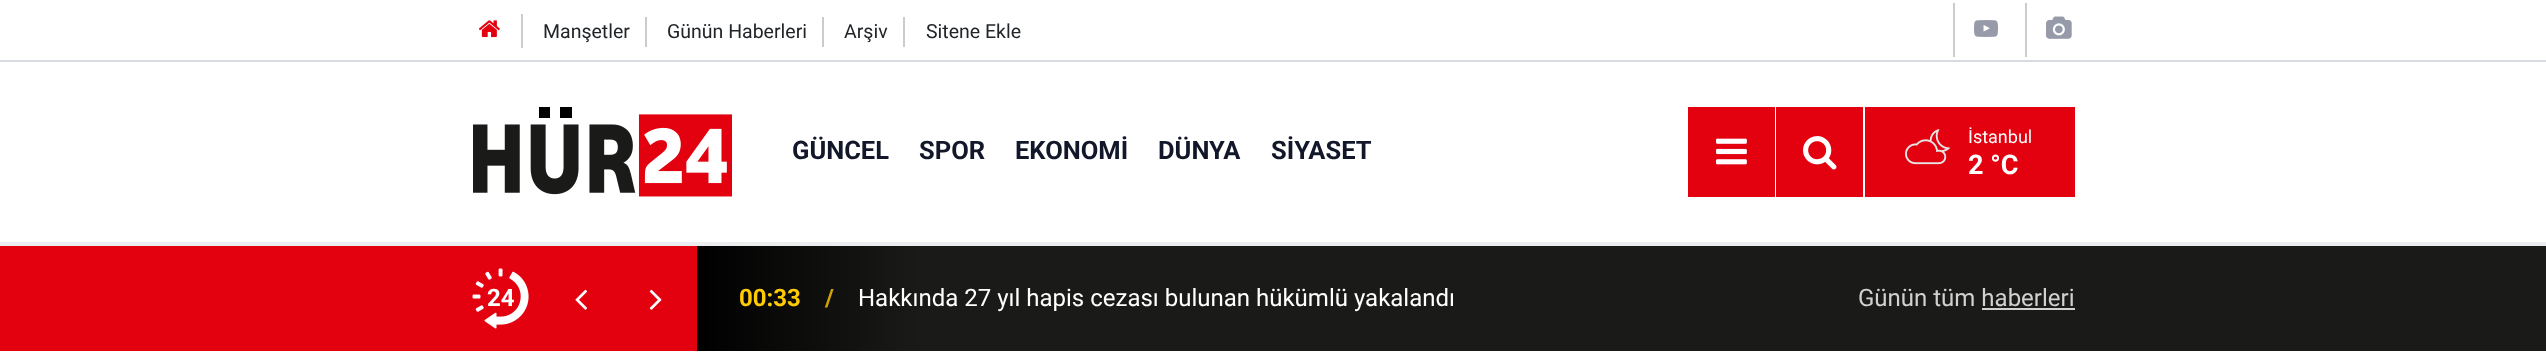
<!DOCTYPE html>
<meta charset="utf-8">
<style>body { margin: 0 } canvas { display: block }</style>
<canvas id="canvas" width="2546" height="356"></canvas>
<script type="module">
  const canvas = document.getElementById("canvas");
  const ctx = canvas.getContext("2d");
  ctx.miterLimit = 4;
  ctx.fontKerning = "normal";
  async function loadImage(src) {
    const img = new Image();
    img.src = src;
    await img.decode();
    return img;
  }
  let gradient;

  ctx.fillStyle = "#ffffff";
  ctx.fillRect(0, 0, 2546, 356);
  ctx.fillStyle = "#cccccc";
  ctx.fillRect(521, 14, 2, 34);
  ctx.drawImage(await loadImage("img1.png"), 478, 20, 22, 18);
  ctx.fillRect(645, 17, 2, 30);
  ctx.font = "19.5px Roboto";
  ctx.fillStyle = "#212529";
  ctx.fillText("Manşetler", 543, 38);
  ctx.fillStyle = "#cccccc";
  ctx.fillRect(822, 17, 2, 30);
  ctx.fillStyle = "#212529";
  ctx.fillText("Günün Haberleri", 667, 38);
  ctx.fillStyle = "#cccccc";
  ctx.fillRect(903, 17, 2, 30);
  ctx.fillStyle = "#212529";
  ctx.fillText("Arşiv", 844, 38);
  ctx.fillText("Sitene Ekle", 926, 38);
  ctx.fillStyle = "#cccccc";
  ctx.fillRect(1953, 3, 2, 54);
  ctx.drawImage(await loadImage("img2.png"), 1974, 20, 24, 17);
  ctx.fillRect(2025, 3, 2, 54);
  ctx.drawImage(await loadImage("img3.png"), 2046, 16, 26, 23);
  ctx.fillStyle = "#d7dae1";
  ctx.fillRect(0, 60, 2546, 2);
  ctx.fillStyle = "#ecedee";
  ctx.fillRect(0, 242, 2546, 4);
  ctx.drawImage(await loadImage("img4.png"), 473, 107, 259, 90);
  ctx.font = "bold 25.5px Roboto";
  ctx.fillStyle = "#12182a";
  ctx.fillText("GÜNCEL", 792, 159);
  ctx.fillText("SPOR", 919, 159);
  ctx.fillText("EKONOMİ", 1015, 159);
  ctx.fillText("DÜNYA", 1158, 159);
  ctx.fillText("SİYASET", 1271, 159);
  ctx.fillStyle = "#e3000f";
  ctx.fillRect(1688, 107, 87, 90);
  ctx.drawImage(await loadImage("img5.png"), 1716, 138, 31, 27);
  ctx.fillRect(1776, 107, 87, 90);
  ctx.drawImage(await loadImage("img6.png"), 1803, 136, 34, 34);
  ctx.fillRect(1865, 107, 210, 90);
  ctx.drawImage(await loadImage("img7.png"), 1905, 129, 45, 36);
  ctx.font = "18px Roboto";
  ctx.fillStyle = "#ffffff";
  ctx.fillText("İstanbul", 1968, 143);
  ctx.font = "bold 27px Roboto";
  ctx.fillText("2 °C", 1968, 174);
  ctx.fillStyle = "#e3000f";
  ctx.fillRect(0, 246, 473, 105);
  ctx.fillStyle = "#1a1a18";
  ctx.fillRect(2075, 246, 471, 105);
  gradient = ctx.createLinearGradient(473, 299, 2075, 298);
  gradient.addColorStop(0.05, "#e3000f");
  gradient.addColorStop(0.14, "#e3000f");
  gradient.addColorStop(0.14, "#000000");
  gradient.addColorStop(0.28, "#1a1a18");
  ctx.fillStyle = gradient;
  ctx.fillRect(473, 246, 1602, 105);
  ctx.drawImage(await loadImage("img8.png"), 472, 268, 57, 61);
  ctx.font = "bold 24px Roboto";
  ctx.fillStyle = "#ffffff";
  ctx.fillText("24", 487, 306);
  ctx.drawImage(await loadImage("img9.png"), 575, 289, 12, 21);
  ctx.drawImage(await loadImage("img10.png"), 649, 289, 13, 21);
  ctx.fillStyle = "#ffcb05";
  ctx.fillText("00:33", 739, 306);
  ctx.fillStyle = "#d1a600";
  ctx.fillText("/", 825, 306);
  ctx.font = "24px Roboto";
  ctx.fillStyle = "#ffffff";
  ctx.fillText("Hakkında 27 yıl hapis cezası bulunan hükümlü yakalandı", 858, 306);
  ctx.fillStyle = "#d1d1d1";
  ctx.fillText("Günün tüm haberleri", 1858, 306);
  ctx.fillRect(1982, 308, 93, 2);
</script>
